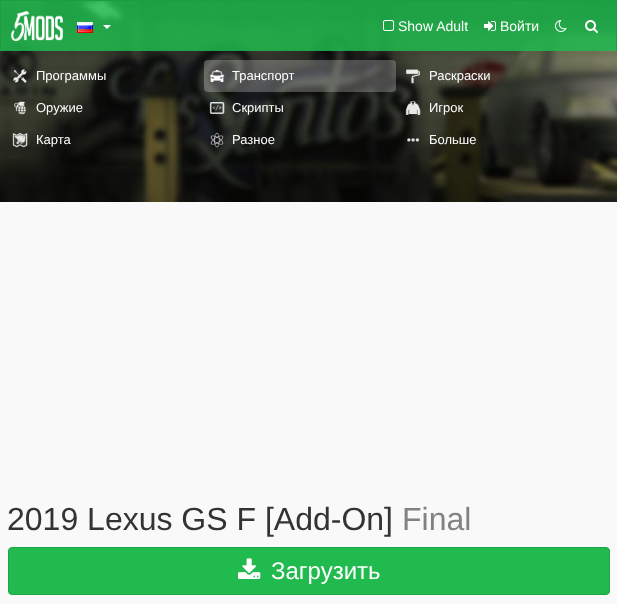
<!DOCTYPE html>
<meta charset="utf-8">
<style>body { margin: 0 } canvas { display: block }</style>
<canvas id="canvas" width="617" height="604"></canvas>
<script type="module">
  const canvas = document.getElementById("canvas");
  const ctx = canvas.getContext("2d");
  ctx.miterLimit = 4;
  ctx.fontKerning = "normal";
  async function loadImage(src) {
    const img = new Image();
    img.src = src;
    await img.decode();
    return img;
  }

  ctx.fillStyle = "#f9f9f9";
  ctx.fillRect(0, 0, 617, 604);
  ctx.drawImage(await loadImage("img7.png"), 0, 1, 617, 201);
  ctx.fillStyle = "rgba(32, 186, 78, 0.85)";
  ctx.fillRect(1, 1, 615, 50);
  ctx.fillStyle = "#1b9e42";
  ctx.fillRect(0, 0, 617, 1);
  ctx.fillRect(616, 0, 1, 51);
  ctx.fillRect(0, 0, 1, 51);
  ctx.drawImage(await loadImage("img1.png"), 11, 11, 52, 30);
  ctx.drawImage(await loadImage("img2.png"), 77, 22, 16, 11);
  ctx.fillStyle = "#ffffff";
  ctx.beginPath();
  ctx.moveTo(103, 25);
  ctx.lineTo(111, 25);
  ctx.lineTo(107, 29);
  ctx.closePath();
  ctx.fill();
  ctx.drawImage(await loadImage("img3.png"), 383, 20, 11, 11);
  ctx.font = "14px Liberation Sans";
  ctx.fillText("Show Adult", 398, 31);
  ctx.drawImage(await loadImage("img4.png"), 484, 21, 12, 10);
  ctx.fillText("Войти", 500, 31);
  ctx.drawImage(await loadImage("img5.png"), 555, 20, 12, 12);
  ctx.drawImage(await loadImage("img6.png"), 585, 20, 13, 13);
  ctx.drawImage(await loadImage("img8.png"), 13, 69, 14, 14);
  ctx.font = "13px Liberation Sans";
  ctx.fillText("Программы", 36, 80);
  ctx.fillStyle = "rgba(255, 255, 255, 0.25)";
  ctx.beginPath();
  ctx.roundRect(204, 60, 192, 32, 4);
  ctx.fill();
  ctx.drawImage(await loadImage("img9.png"), 209, 70, 16, 12);
  ctx.fillStyle = "#ffffff";
  ctx.fillText("Транспорт", 232, 80);
  ctx.drawImage(await loadImage("img10.png"), 406, 69, 14, 15);
  ctx.fillText("Раскраски", 429, 80);
  ctx.drawImage(await loadImage("img11.png"), 14, 101, 12, 14);
  ctx.fillText("Оружие", 36, 112);
  ctx.drawImage(await loadImage("img12.png"), 209, 102, 16, 12);
  ctx.fillText("Скрипты", 232, 112);
  ctx.drawImage(await loadImage("img13.png"), 405, 101, 16, 14);
  ctx.fillText("Игрок", 429, 112);
  ctx.drawImage(await loadImage("img14.png"), 12, 132, 16, 16);
  ctx.fillText("Карта", 36, 144);
  ctx.drawImage(await loadImage("img15.png"), 210, 132, 14, 16);
  ctx.fillText("Разное", 232, 144);
  ctx.drawImage(await loadImage("img16.png"), 407, 138, 12, 4);
  ctx.fillText("Больше", 429, 144);
  ctx.font = "32px Liberation Sans";
  ctx.fillStyle = "#333333";
  ctx.fillText("2019 Lexus GS F [Add-On]", 7, 530);
  ctx.fillStyle = "#828282";
  ctx.fillText("Final", 402, 530);
  ctx.fillStyle = "#20ba4e";
  ctx.beginPath();
  ctx.roundRect(8.5, 547.5, 601, 47, 3.5);
  ctx.fill();
  ctx.strokeStyle = "#1ca445";
  ctx.stroke();
  ctx.drawImage(await loadImage("img17.png"), 238, 558, 23, 21);
  ctx.font = "24px Liberation Sans";
  ctx.fillStyle = "#ffffff";
  ctx.fillText("Загрузить", 271, 579);
</script>
